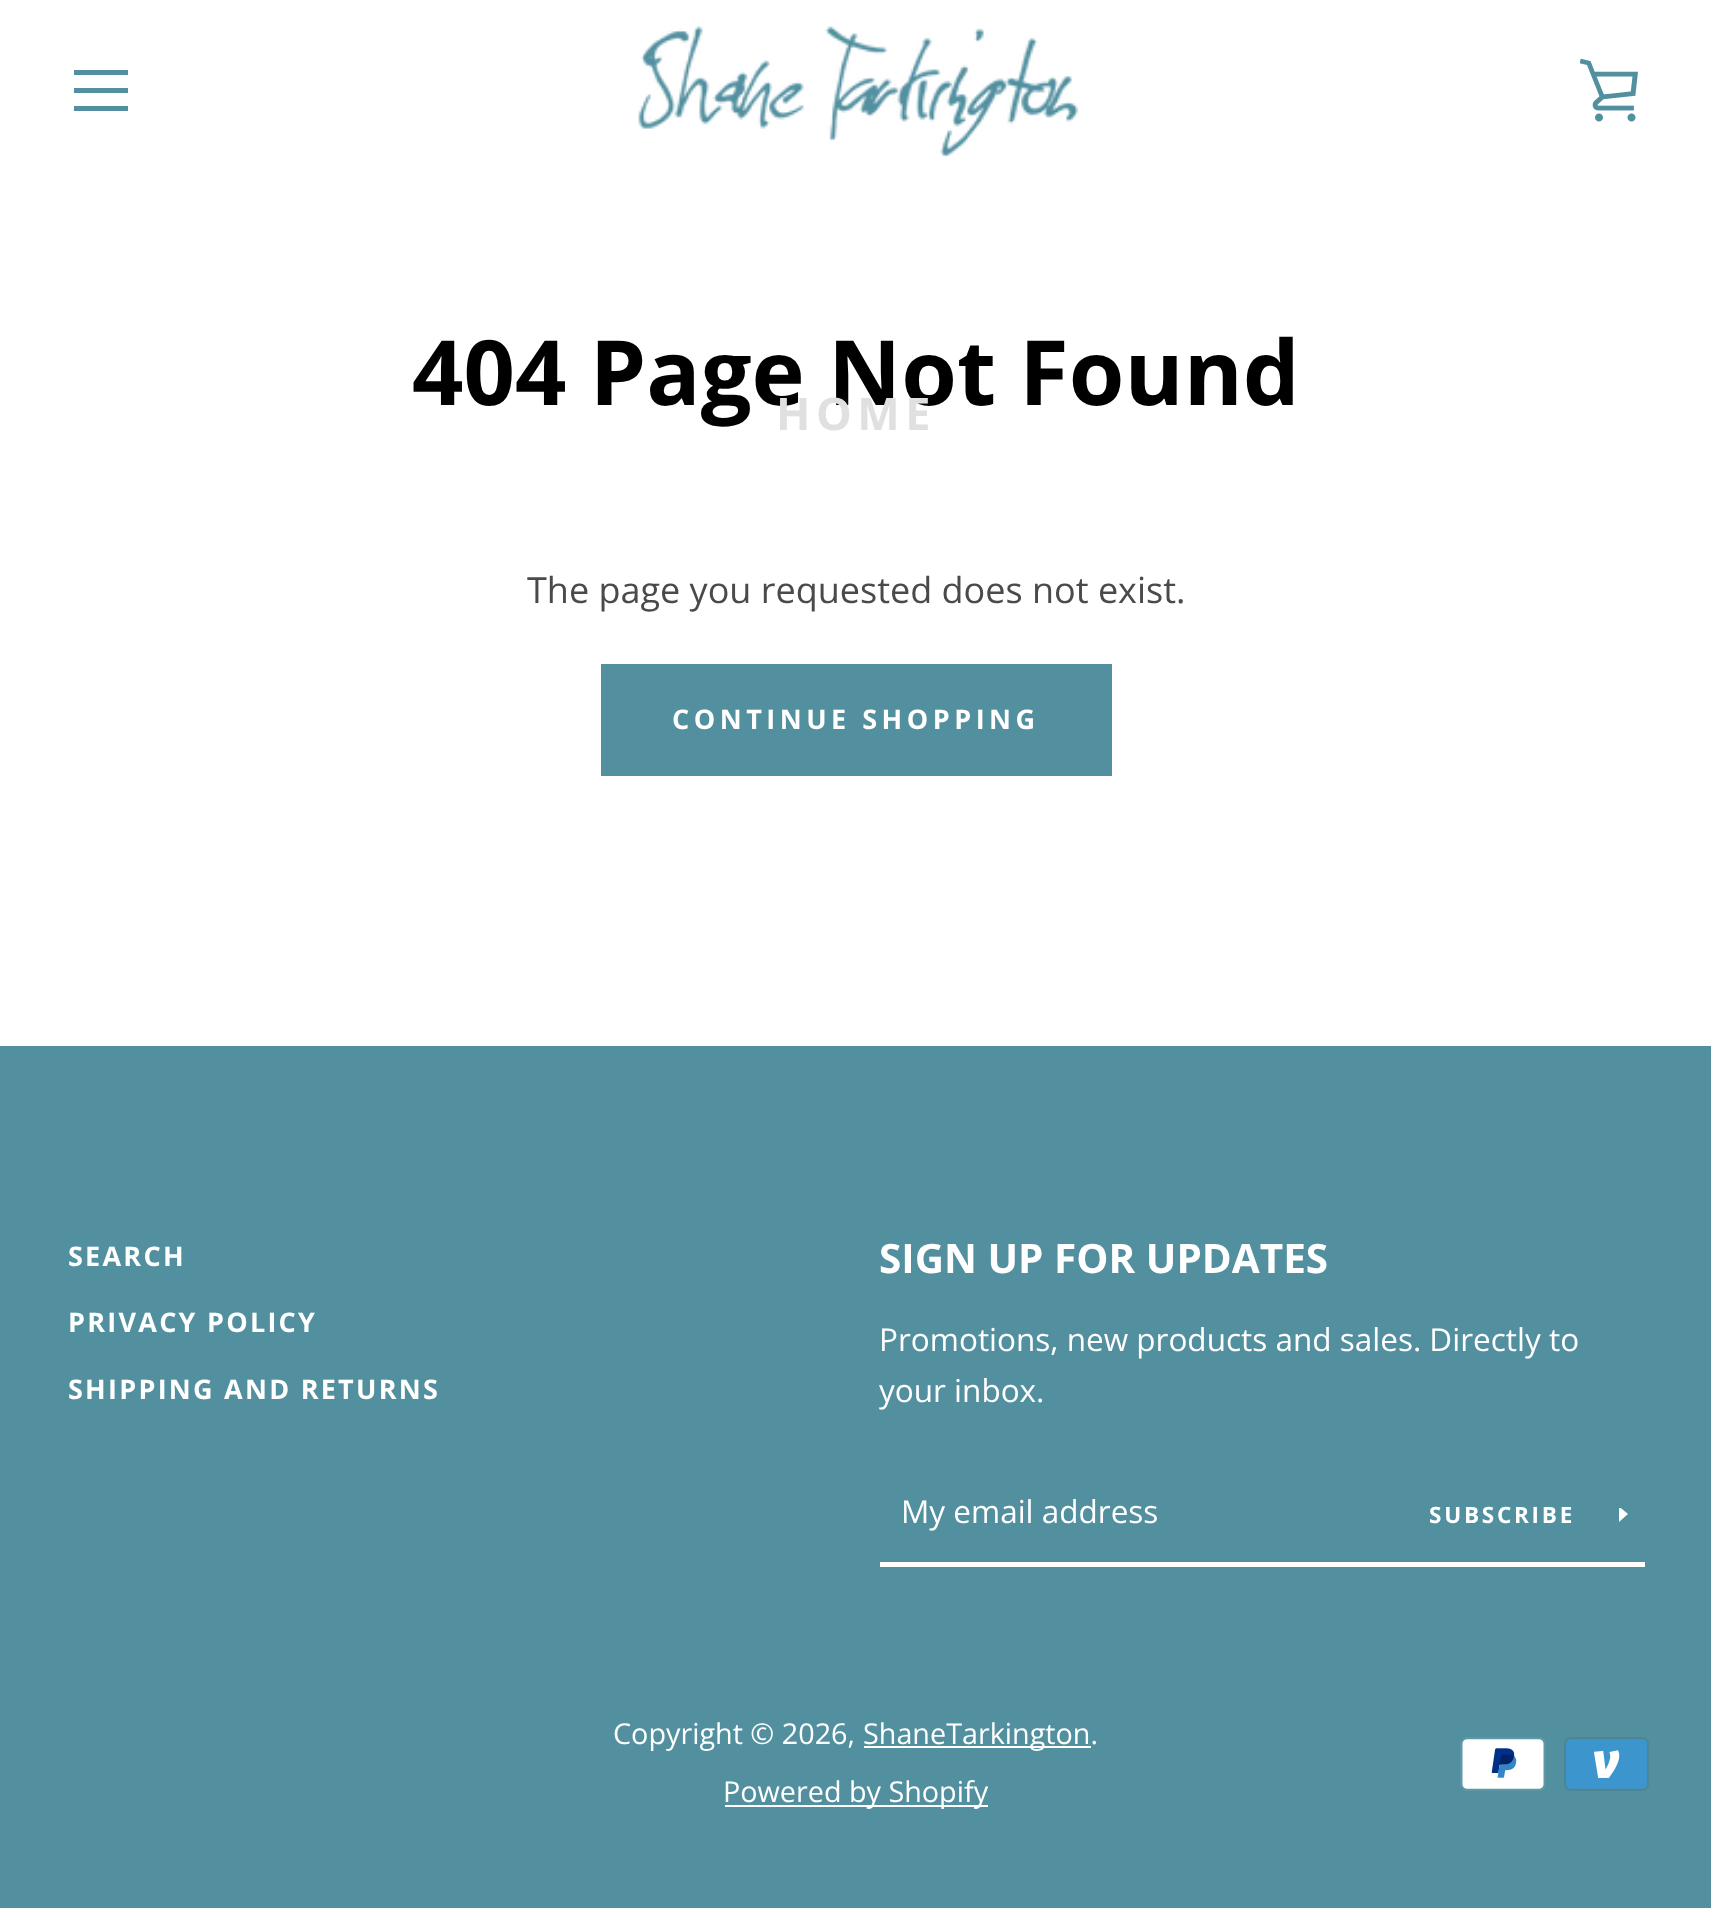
<!DOCTYPE html>
<meta charset="utf-8">
<style>body { margin: 0 } canvas { display: block }</style>
<canvas id="canvas" width="1711" height="1908"></canvas>
<script type="module">
  const canvas = document.getElementById("canvas");
  const ctx = canvas.getContext("2d");
  ctx.miterLimit = 4;
  ctx.fontKerning = "normal";
  async function loadImage(src) {
    const img = new Image();
    img.src = src;
    await img.decode();
    return img;
  }

  ctx.fillStyle = "#5290a0";
  ctx.fillRect(0, 0, 1711, 1908);
  ctx.fillStyle = "#ffffff";
  ctx.fillRect(0, 0, 1711, 1046);
  ctx.font = "bold 90px Open Sans";
  ctx.fillStyle = "#000000";
  ctx.fillText("404 Page Not Found", 412, 405);
  ctx.font = "36px Open Sans";
  ctx.fillStyle = "#4a4a4a";
  ctx.fillText("The page you requested does not exist.", 527, 603);
  ctx.fillStyle = "#5290a0";
  ctx.fillRect(601, 664, 511, 112);
  ctx.letterSpacing = "4.5px";
  ctx.font = "bold 27px Open Sans";
  ctx.fillStyle = "#ffffff";
  ctx.fillText("CONTINUE SHOPPING", 672, 729);
  ctx.letterSpacing = "2.25px";
  ctx.fillText("SEARCH", 68, 1266);
  ctx.fillText("PRIVACY POLICY", 68, 1332);
  ctx.fillText("SHIPPING AND RETURNS", 68, 1399);
  ctx.letterSpacing = "0px";
  ctx.font = "bold 40.5px Open Sans";
  ctx.fillText("SIGN UP FOR UPDATES", 879, 1273);
  ctx.font = "31.5px Open Sans";
  ctx.fillText("Promotions, new products and sales. Directly to", 879, 1351);
  ctx.fillText("your inbox.", 879, 1402);
  ctx.fillRect(880, 1562, 765, 5);
  ctx.fillText("My email address", 901, 1523);
  ctx.letterSpacing = "2.75px";
  ctx.font = "bold 22.5px Open Sans";
  ctx.fillText("SUBSCRIBE", 1429, 1523);
  ctx.save();
  ctx.beginPath();
  ctx.rect(1584, 1508, 45, 15);
  ctx.clip();
  ctx.beginPath();
  ctx.moveTo(1628, 1514);
  ctx.lineTo(1619, 1522);
  ctx.lineTo(1619, 1506.5);
  ctx.closePath();
  ctx.fill();
  ctx.restore();
  ctx.letterSpacing = "0px";
  ctx.font = "28.75px Open Sans";
  ctx.fillText("Copyright © 2026,", 613, 1744);
  ctx.fillRect(864, 1746, 227, 2);
  ctx.fillText("ShaneTarkington.", 863, 1744);
  ctx.fillRect(725, 1805, 263, 2);
  ctx.fillText("Powered by Shopify", 723, 1802);
  ctx.drawImage(await loadImage("img1.png"), 1460, 1737, 86, 54);
  ctx.drawImage(await loadImage("img2.png"), 1564, 1737, 85, 54);
  ctx.drawImage(await loadImage("img3.png"), 638, 26, 441, 132);
  ctx.drawImage(await loadImage("img4.png"), 1580, 58, 58, 64);
  ctx.fillStyle = "#5290a0";
  ctx.fillRect(74, 70, 54, 5);
  ctx.fillRect(74, 88, 54, 5);
  ctx.fillRect(74, 106, 54, 5);
  ctx.letterSpacing = "5.5px";
  ctx.font = "bold 45px Open Sans";
  ctx.fillStyle = "#e0e0e0";
  ctx.fillText("HOME", 776, 430);
</script>
